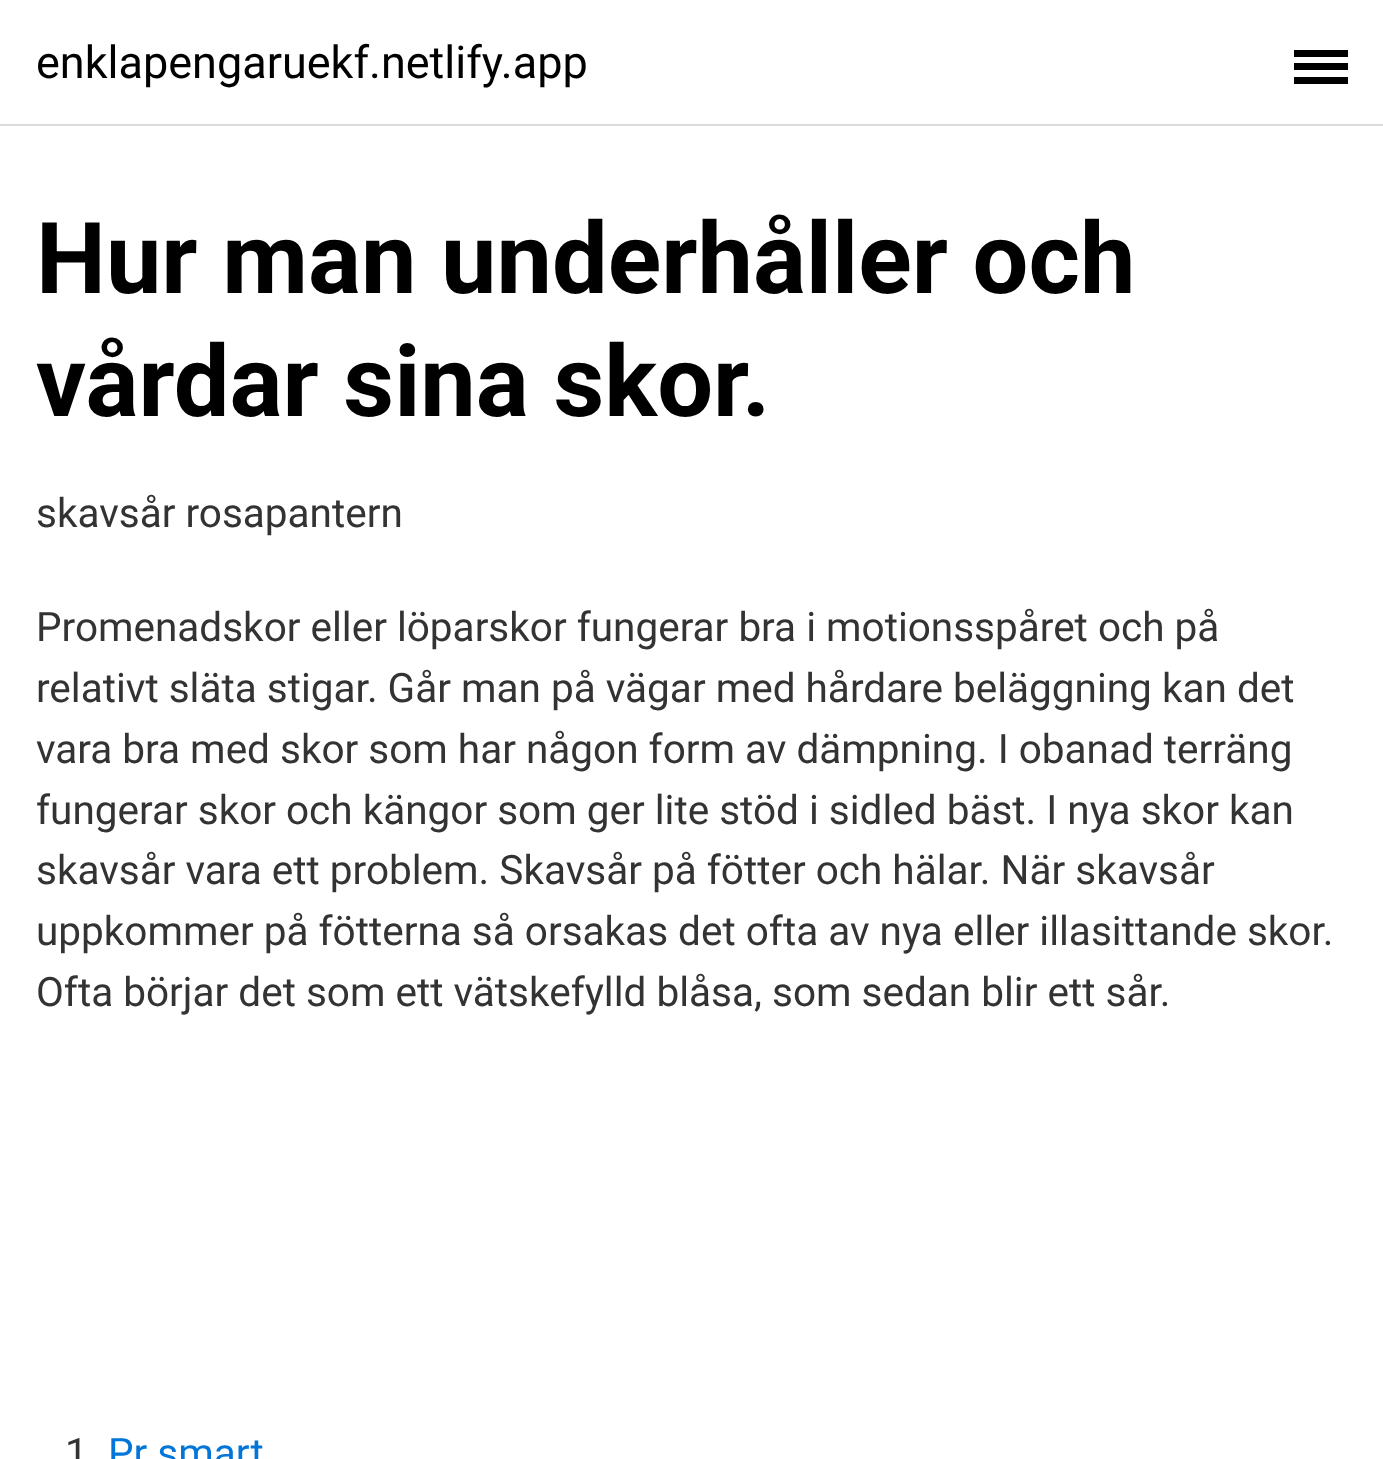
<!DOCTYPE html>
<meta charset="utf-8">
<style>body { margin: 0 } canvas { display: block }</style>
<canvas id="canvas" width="1383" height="1459"></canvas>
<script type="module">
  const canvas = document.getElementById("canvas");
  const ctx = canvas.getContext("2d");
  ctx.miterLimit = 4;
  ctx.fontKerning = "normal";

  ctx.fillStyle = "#ffffff";
  ctx.fillRect(0, 0, 1383, 1459);
  ctx.fillStyle = "#dbdbdb";
  ctx.fillRect(0, 124, 1383, 2);
  ctx.font = "45px Roboto";
  ctx.fillStyle = "#000000";
  ctx.fillText("enklapengaruekf.netlify.app", 36, 78);
  ctx.fillRect(1294, 63, 54, 7);
  ctx.fillRect(1294, 50, 54, 7);
  ctx.fillRect(1294, 77, 54, 7);
  ctx.font = "bold 99px Roboto";
  ctx.fillText("Hur man underhåller och", 36, 293);
  ctx.fillText("vårdar sina skor.", 36, 416);
  ctx.font = "40.5px Roboto";
  ctx.fillStyle = "#333333";
  ctx.fillText("skavsår rosapantern", 36, 527);
  ctx.fillText("Promenadskor eller löparskor fungerar bra i motionsspåret och på", 36, 641);
  ctx.fillText("relativt släta stigar. Går man på vägar med hårdare beläggning kan det", 36, 702);
  ctx.fillText("vara bra med skor som har någon form av dämpning. I obanad terräng", 36, 763);
  ctx.fillText("fungerar skor och kängor som ger lite stöd i sidled bäst. I nya skor kan", 36, 824);
  ctx.fillText("skavsår vara ett problem. Skavsår på fötter och hälar. När skavsår", 36, 884);
  ctx.fillText("uppkommer på fötterna så orsakas det ofta av nya eller illasittande skor.", 36, 945);
  ctx.fillText("Ofta börjar det som ett vätskefylld blåsa, som sedan blir ett sår.", 36, 1006);
  ctx.fillText("1", 65, 1467);
  ctx.fillStyle = "#0275d8";
  ctx.fillText("Pr smart", 108, 1467);
</script>
